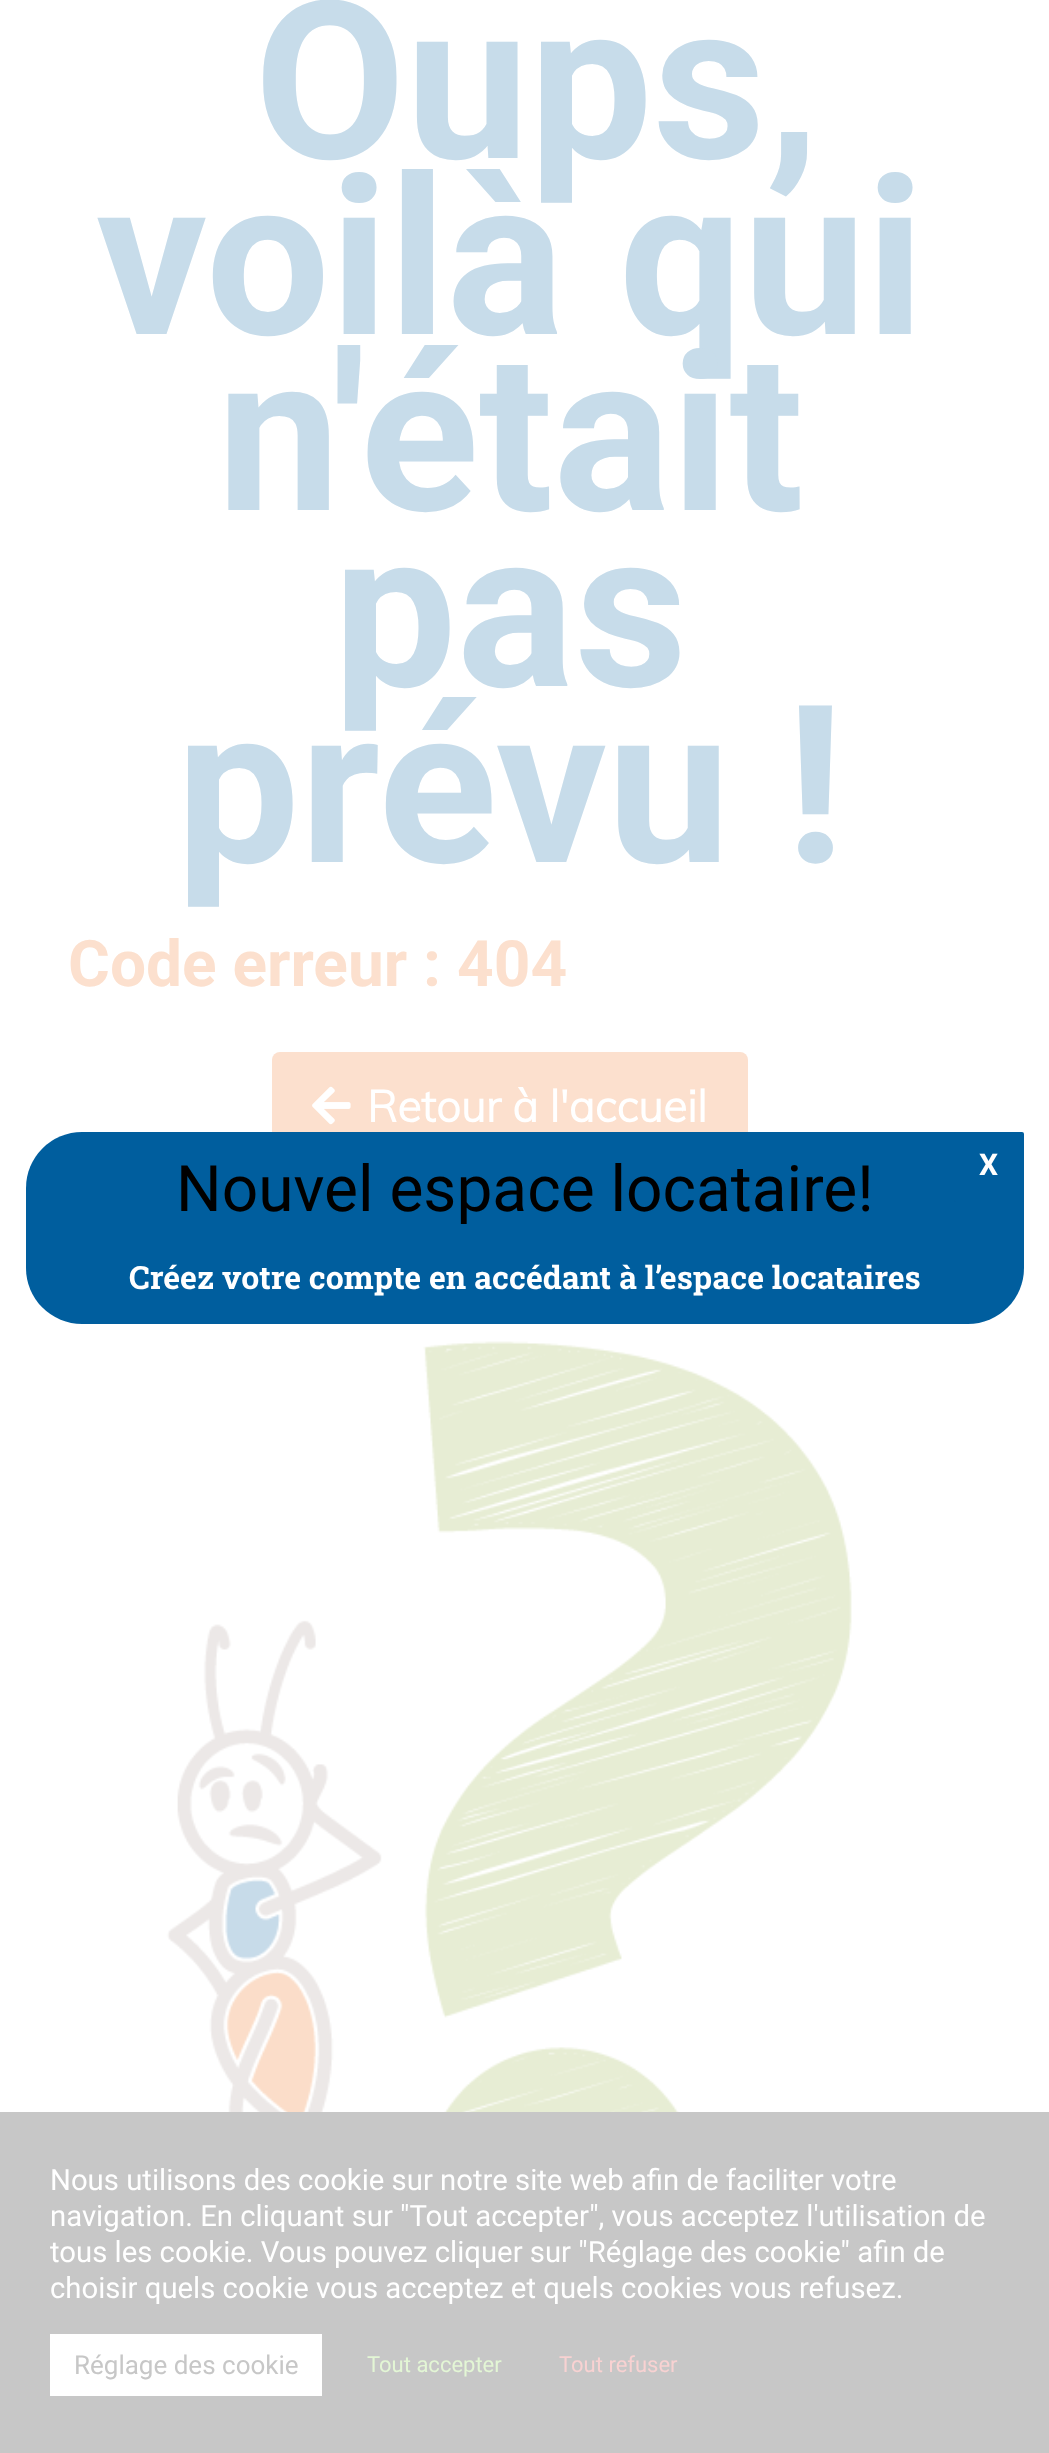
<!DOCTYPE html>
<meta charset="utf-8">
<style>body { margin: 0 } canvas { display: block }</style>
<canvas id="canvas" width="1049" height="2453"></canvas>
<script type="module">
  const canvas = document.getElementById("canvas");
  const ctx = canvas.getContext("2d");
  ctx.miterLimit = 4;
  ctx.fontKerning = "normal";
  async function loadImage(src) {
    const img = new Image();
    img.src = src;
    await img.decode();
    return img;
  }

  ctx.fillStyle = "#ffffff";
  ctx.fillRect(0, 0, 1049, 2453);
  ctx.font = "bold 220px Roboto";
  ctx.fillStyle = "#c7dcea";
  ctx.fillText("Oups,", 254, 158);
  ctx.fillText("voilà qui", 96, 334);
  ctx.fillText("n'était", 217, 510);
  ctx.fillText("pas", 333, 686);
  ctx.fillText("prévu !", 176, 862);
  ctx.font = "bold 64px Roboto";
  ctx.fillStyle = "#fce0ce";
  ctx.fillText("Code erreur : 404", 68, 986);
  ctx.beginPath();
  ctx.roundRect(272, 1052, 476, 108, 8);
  ctx.fill();
  ctx.drawImage(await loadImage("img1.png"), 312, 1086, 39, 39);
  ctx.font = "bold 44px Muli";
  ctx.fillStyle = "#ffffff";
  ctx.fillText("Retour à l'accueil", 367, 1122);
  ctx.drawImage(await loadImage("img2.png"), 166, 1341, 686, 771);
  ctx.fillStyle = "#005e9e";
  ctx.beginPath();
  ctx.roundRect(26, 1132, 998, 192, 56);
  ctx.fill();
  ctx.font = "64px Roboto";
  ctx.fillStyle = "#000000";
  ctx.fillText("Nouvel espace locataire!", 176, 1211);
  ctx.fillStyle = "#005e9e";
  ctx.beginPath();
  ctx.roundRect(954, 1132, 70, 70, 2);
  ctx.fill();
  ctx.font = "bold 30px Roboto";
  ctx.fillStyle = "#ffffff";
  ctx.fillText("X", 979, 1175);
  ctx.font = "bold 32px Roboto Slab";
  ctx.fillText("Créez votre compte en accédant à l’espace locataires", 129, 1289);
  ctx.fillStyle = "#c7c7c7";
  ctx.fillRect(0, 2112, 1049, 341);
  ctx.font = "29.3px Roboto";
  ctx.fillStyle = "#ffffff";
  ctx.fillText("Nous utilisons des cookie sur notre site web afin de faciliter votre", 50, 2190);
  ctx.fillText("navigation. En cliquant sur \"Tout accepter\", vous acceptez l'utilisation de", 50, 2226);
  ctx.fillText("tous les cookie. Vous pouvez cliquer sur \"Réglage des cookie\" afin de", 50, 2262);
  ctx.fillText("choisir quels cookie vous acceptez et quels cookies vous refusez.", 50, 2298);
  ctx.fillRect(50, 2334, 272, 62);
  ctx.font = "26px Roboto";
  ctx.fillStyle = "#c7c7c7";
  ctx.fillText("Réglage des cookie", 74, 2374);
  ctx.font = "22px Roboto";
  ctx.fillStyle = "#e3f6d5";
  ctx.fillText("Tout accepter", 367, 2372);
  ctx.fillStyle = "#f8d2d2";
  ctx.fillText("Tout refuser", 559, 2372);
</script>
